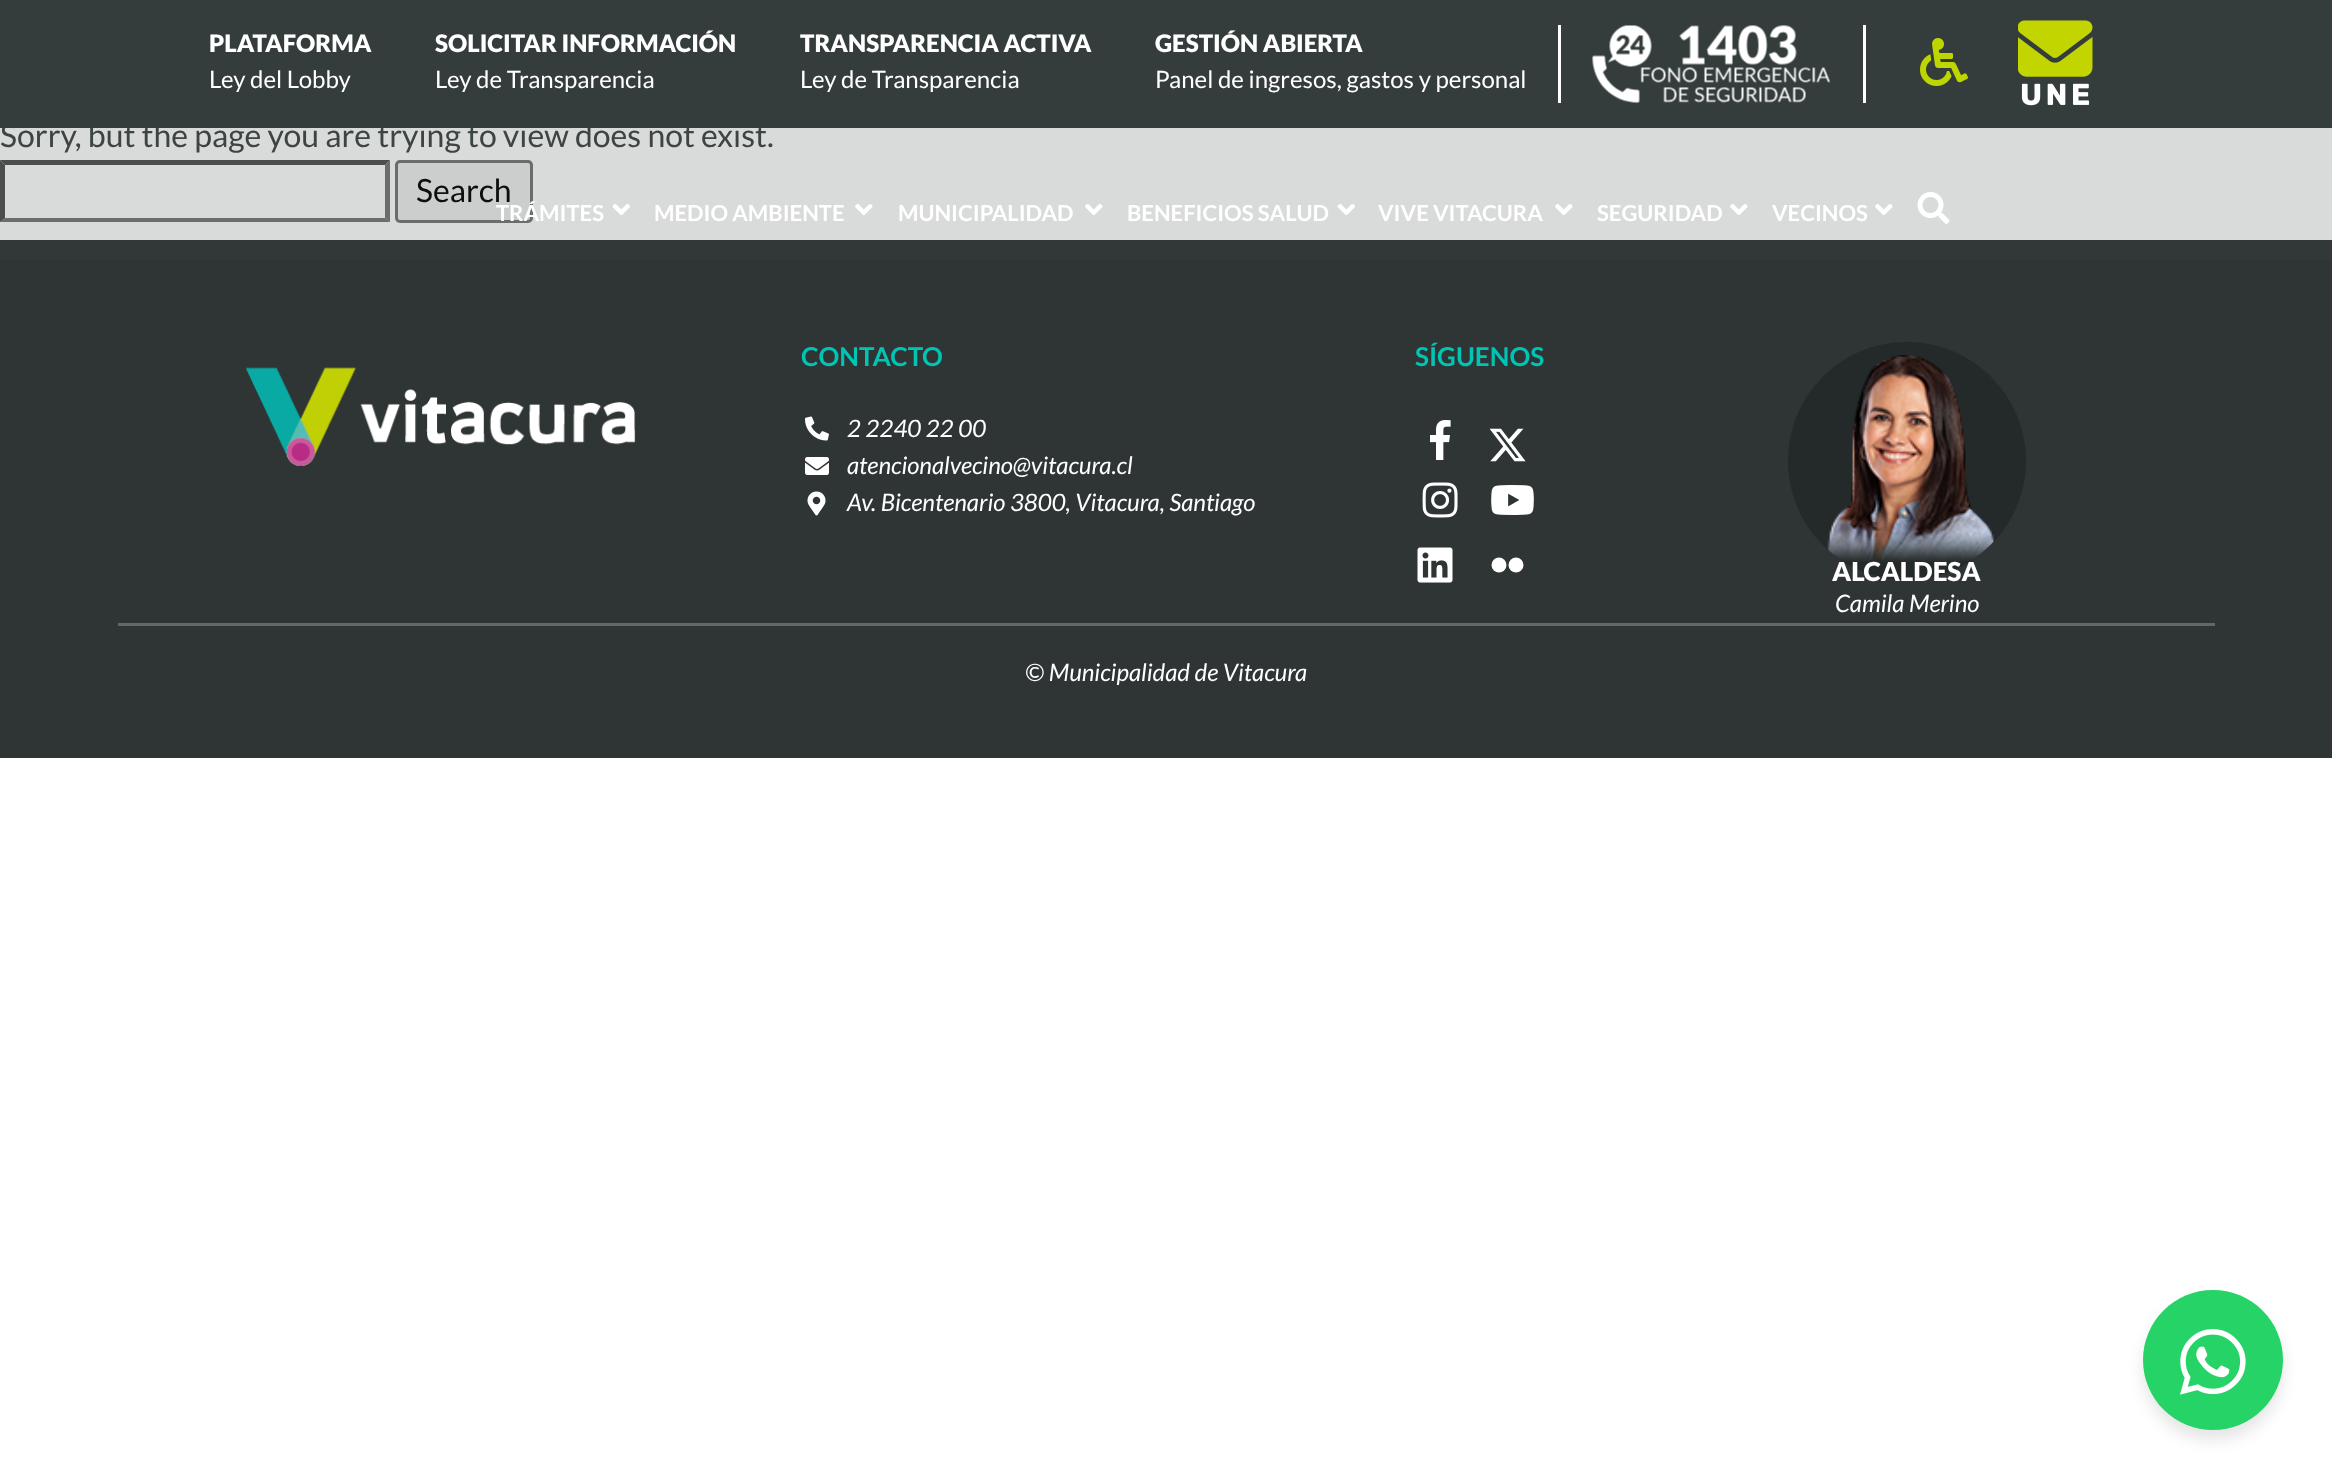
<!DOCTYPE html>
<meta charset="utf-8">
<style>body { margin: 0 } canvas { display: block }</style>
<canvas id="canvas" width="2332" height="1466"></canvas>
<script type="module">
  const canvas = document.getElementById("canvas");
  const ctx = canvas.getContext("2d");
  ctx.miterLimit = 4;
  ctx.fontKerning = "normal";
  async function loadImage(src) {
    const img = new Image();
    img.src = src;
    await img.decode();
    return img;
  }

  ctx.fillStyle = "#ffffff";
  ctx.fillRect(0, 0, 2332, 1466);
  ctx.fillStyle = "#d9dada";
  ctx.fillRect(0, 128, 2332, 112);
  ctx.font = "32px Lato";
  ctx.fillStyle = "#3d4544";
  ctx.fillText("Sorry, but the page you are trying to view does not exist.", 0, 147);
  ctx.fillStyle = "#353d3c";
  ctx.fillRect(0, 0, 2332, 128);
  ctx.font = "900 24px Lato";
  ctx.fillStyle = "#ffffff";
  ctx.fillText("PLATAFORMA", 209, 52);
  ctx.font = "24px Lato";
  ctx.fillText("Ley del Lobby", 209, 88);
  ctx.font = "900 24px Lato";
  ctx.fillText("SOLICITAR INFORMACIÓN", 435, 52);
  ctx.font = "24px Lato";
  ctx.fillText("Ley de Transparencia", 435, 88);
  ctx.font = "900 24px Lato";
  ctx.fillText("TRANSPARENCIA ACTIVA", 800, 52);
  ctx.font = "24px Lato";
  ctx.fillText("Ley de Transparencia", 800, 88);
  ctx.font = "900 24px Lato";
  ctx.fillText("GESTIÓN ABIERTA", 1155, 52);
  ctx.font = "24px Lato";
  ctx.fillText("Panel de ingresos, gastos y personal", 1155, 88);
  ctx.fillRect(1863, 25, 3, 78);
  ctx.fillRect(1558, 25, 3, 78);
  ctx.drawImage(await loadImage("img1.png"), 1592, 25, 239, 78);
  ctx.drawImage(await loadImage("img2.png"), 1920, 38, 48, 48);
  ctx.drawImage(await loadImage("img3.png"), 2018, 20, 75, 86);
  ctx.fillStyle = "#cccdcd";
  ctx.beginPath();
  ctx.roundRect(396.5, 161.5, 135, 60, 3.5);
  ctx.fill();
  ctx.strokeStyle = "#6b6c6c";
  ctx.lineWidth = 3;
  ctx.stroke();
  ctx.font = "bold 22px Lato";
  ctx.fillStyle = "#ffffff";
  ctx.fillText("TRÁMITES", 496, 221);
  ctx.drawImage(await loadImage("img4.png"), 612, 204, 18, 11);
  ctx.fillText("MEDIO AMBIENTE", 654, 221);
  ctx.drawImage(await loadImage("img5.png"), 855, 204, 18, 11);
  ctx.fillText("MUNICIPALIDAD", 898, 221);
  ctx.drawImage(await loadImage("img5.png"), 1085, 204, 18, 11);
  ctx.fillText("BENEFICIOS SALUD", 1127, 221);
  ctx.drawImage(await loadImage("img4.png"), 1337, 204, 18, 11);
  ctx.fillText("VIVE VITACURA", 1378, 221);
  ctx.drawImage(await loadImage("img5.png"), 1555, 204, 18, 11);
  ctx.fillText("SEGURIDAD", 1597, 221);
  ctx.drawImage(await loadImage("img5.png"), 1730, 204, 18, 11);
  ctx.fillText("VECINOS", 1772, 221);
  ctx.drawImage(await loadImage("img5.png"), 1875, 204, 18, 11);
  ctx.drawImage(await loadImage("img6.png"), 1917, 192, 33, 32);
  ctx.fillStyle = "#4c4d4d";
  ctx.beginPath();
  ctx.moveTo(0, 160);
  ctx.lineTo(390, 160);
  ctx.lineTo(385, 165);
  ctx.lineTo(5, 165);
  ctx.closePath();
  ctx.fill();
  ctx.fillStyle = "#6b6c6c";
  ctx.beginPath();
  ctx.moveTo(390, 160);
  ctx.lineTo(390, 222);
  ctx.lineTo(385, 218);
  ctx.lineTo(385, 165);
  ctx.closePath();
  ctx.fill();
  ctx.beginPath();
  ctx.moveTo(390, 222);
  ctx.lineTo(0, 222);
  ctx.lineTo(5, 218);
  ctx.lineTo(385, 218);
  ctx.closePath();
  ctx.fill();
  ctx.fillStyle = "#4c4d4d";
  ctx.beginPath();
  ctx.moveTo(0, 222);
  ctx.lineTo(0, 160);
  ctx.lineTo(5, 165);
  ctx.lineTo(5, 218);
  ctx.closePath();
  ctx.fill();
  ctx.font = "32px Lato";
  ctx.fillStyle = "#0d0e0e";
  ctx.fillText("Search", 416, 202);
  ctx.fillStyle = "#2e3534";
  ctx.fillRect(0, 260, 2332, 498);
  ctx.fillStyle = "#323838";
  ctx.fillRect(0, 240, 2332, 20);
  ctx.fillStyle = "#626867";
  ctx.fillRect(118, 623, 2097, 3);
  ctx.drawImage(await loadImage("img7.png"), 246, 367, 390, 99);
  ctx.font = "bold 26px Lato";
  ctx.fillStyle = "#00c5b5";
  ctx.fillText("CONTACTO", 801, 366);
  ctx.drawImage(await loadImage("img8.png"), 805, 416, 24, 25);
  ctx.font = "italic 24px Lato";
  ctx.fillStyle = "#ffffff";
  ctx.fillText("2 2240 22 00", 847, 437);
  ctx.drawImage(await loadImage("img9.png"), 805, 457, 24, 18);
  ctx.fillText("atencionalvecino@vitacura.cl", 847, 474);
  ctx.drawImage(await loadImage("img10.png"), 807, 491, 19, 25);
  ctx.fillText("Av. Bicentenario 3800, Vitacura, Santiago", 847, 511);
  ctx.font = "bold 26px Lato";
  ctx.fillStyle = "#00c5b5";
  ctx.fillText("SÍGUENOS", 1415, 366);
  ctx.drawImage(await loadImage("img11.png"), 1430, 420, 21, 40);
  ctx.drawImage(await loadImage("img12.png"), 1489, 428, 37, 34);
  ctx.drawImage(await loadImage("img13.png"), 1422, 482, 36, 36);
  ctx.drawImage(await loadImage("img14.png"), 1491, 485, 43, 30);
  ctx.drawImage(await loadImage("img15.png"), 1417, 547, 36, 36);
  ctx.fillStyle = "#ffffff";
  ctx.beginPath();
  ctx.arc(1499, 565, 7.5, 0, Math.PI * 2);
  ctx.fill();
  ctx.beginPath();
  ctx.arc(1516, 565, 7.5, 0, Math.PI * 2);
  ctx.fill();
  ctx.fillStyle = "#242a29";
  ctx.beginPath();
  ctx.moveTo(1907, 342);
  ctx.bezierCurveTo(1841, 342, 1788, 395, 1788, 461);
  ctx.bezierCurveTo(1788, 526, 1841, 580, 1907, 580);
  ctx.bezierCurveTo(1972, 580, 2026, 526, 2026, 461);
  ctx.bezierCurveTo(2026, 395, 1972, 342, 1907, 342);
  ctx.closePath();
  ctx.fill();
  ctx.drawImage(await loadImage("img16.png"), 1827, 355, 167, 207);
  ctx.font = "900 26px Lato";
  ctx.fillStyle = "#ffffff";
  ctx.fillText("ALCALDESA", 1832, 581);
  ctx.font = "italic 24px Lato";
  ctx.fillText("Camila Merino", 1835, 612);
  ctx.fillText("© Municipalidad de Vitacura", 1025, 681);
  ctx.fillStyle = "rgba(0, 0, 0, 0.1)";
  ctx.filter = "blur(7.5px)";
  ctx.beginPath();
  ctx.roundRect(2143, 1300, 140, 140, 70);
  ctx.fill();
  ctx.filter = "none";
  ctx.fillStyle = "#25d366";
  ctx.beginPath();
  ctx.arc(2213, 1360, 70, 0, Math.PI * 2);
  ctx.fill();
  ctx.drawImage(await loadImage("img17.png"), 2180, 1329, 66, 66);
</script>
